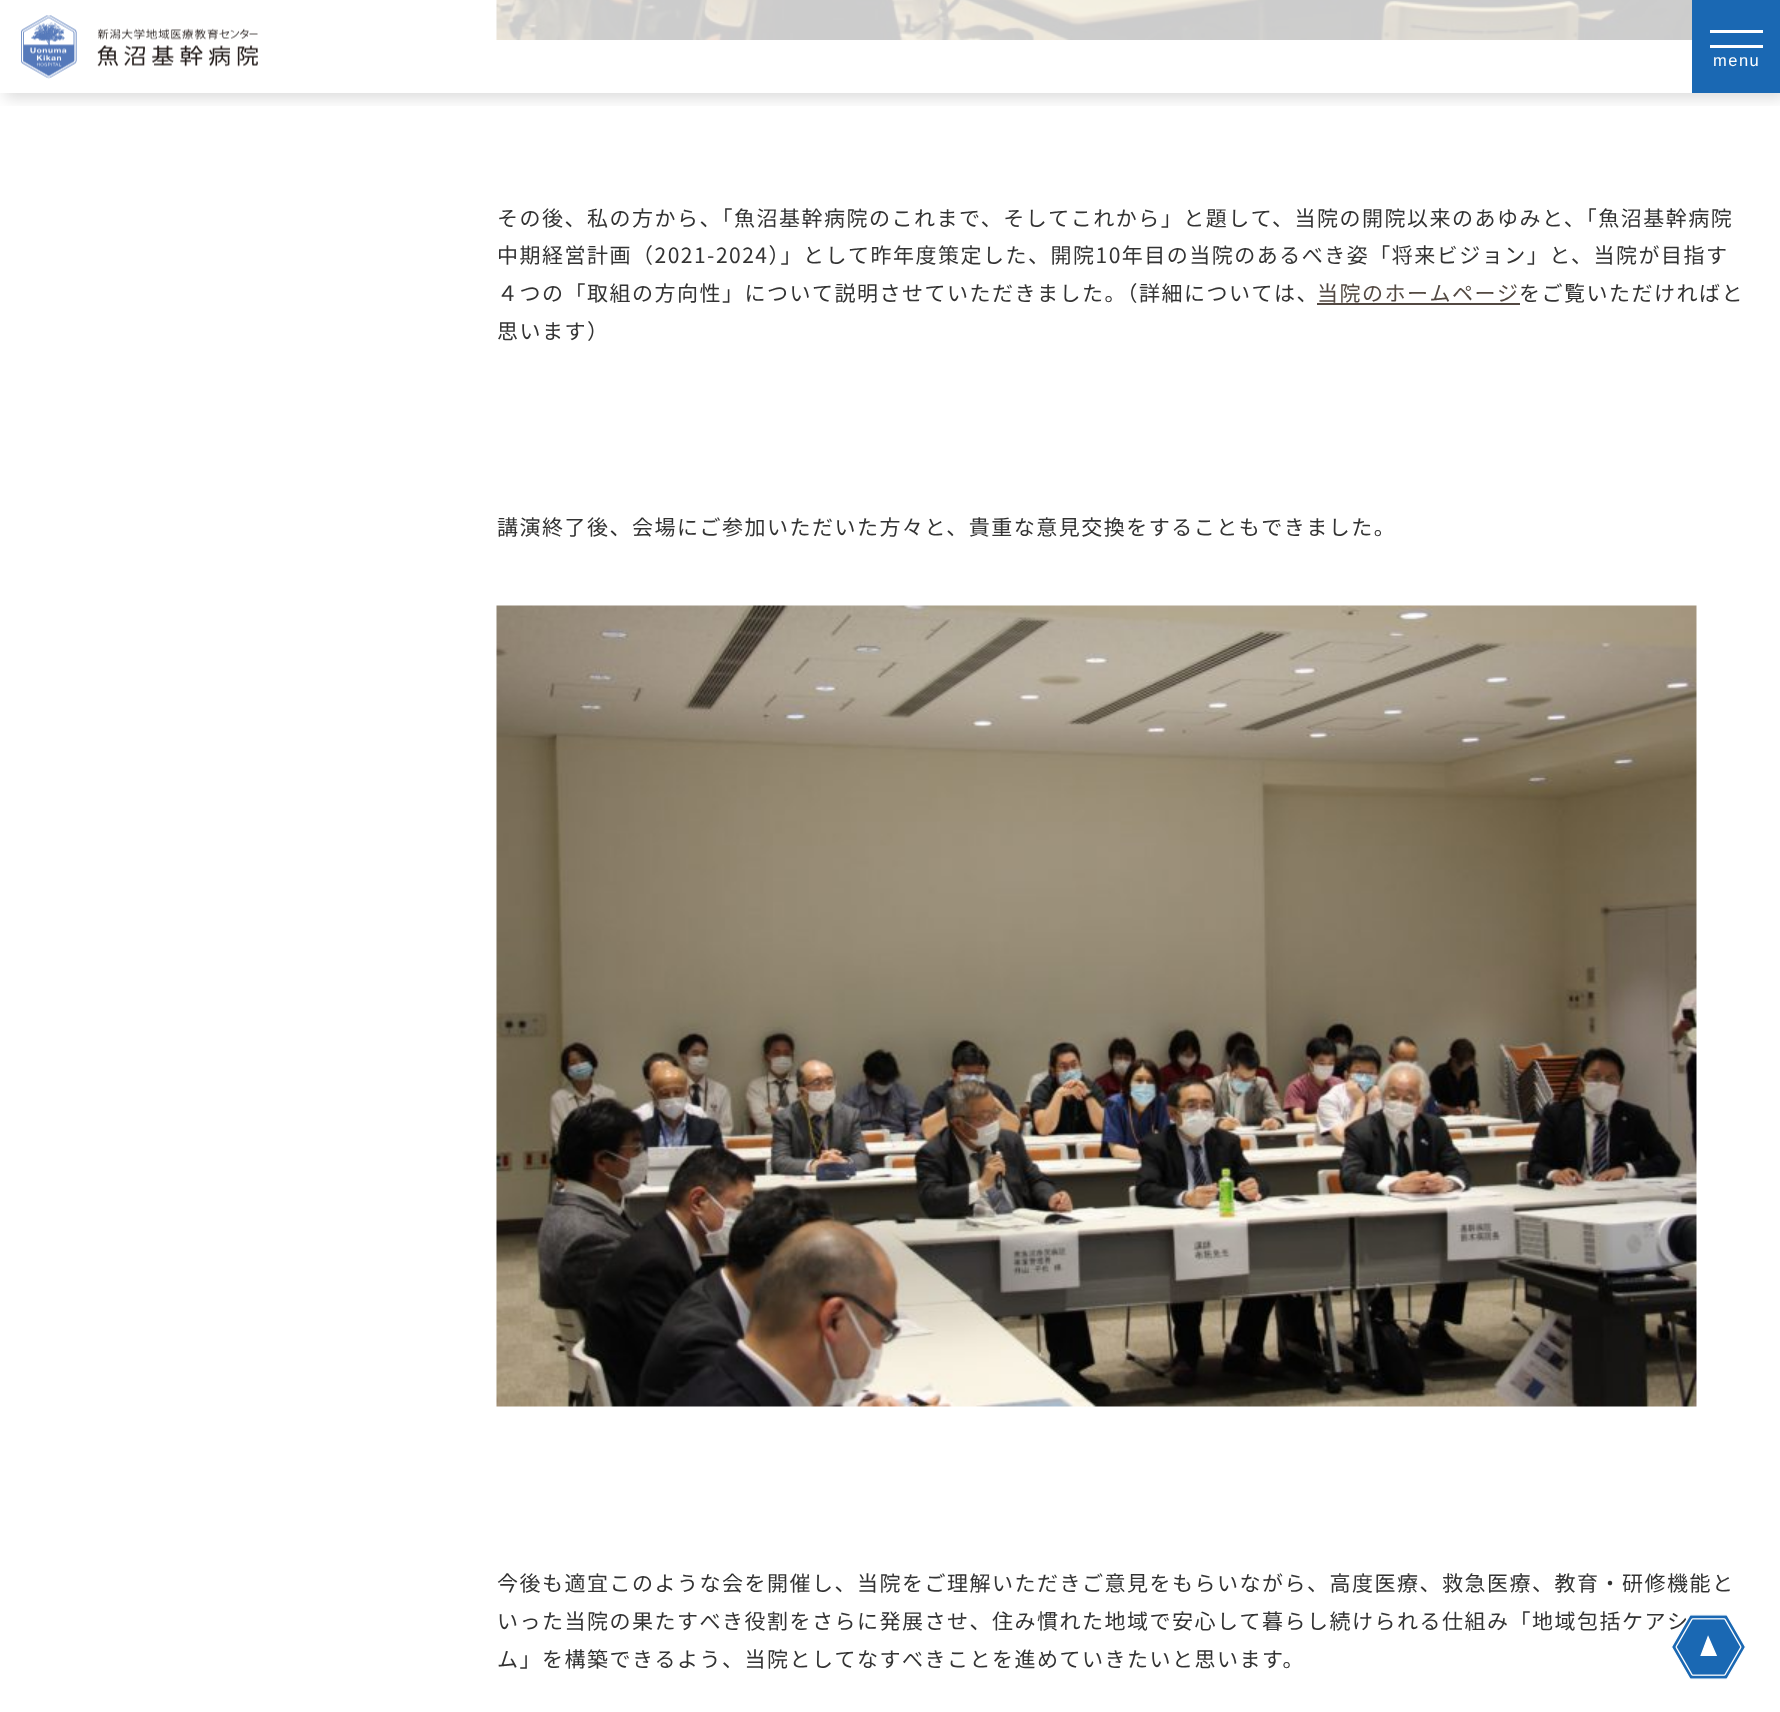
<!DOCTYPE html>
<meta charset="utf-8">
<style>body { margin: 0 } canvas { display: block }</style>
<canvas id="canvas" width="1780" height="1712"></canvas>
<script type="module">
  const canvas = document.getElementById("canvas");
  const ctx = canvas.getContext("2d");
  ctx.miterLimit = 4;
  ctx.fontKerning = "normal";
  async function loadImage(src) {
    const img = new Image();
    img.src = src;
    await img.decode();
    return img;
  }

  ctx.fillStyle = "#ffffff";
  ctx.fillRect(0, 0, 1780, 1712);
  ctx.drawImage(await loadImage("img2.png"), 496, 0, 1196, 40);
  ctx.save();
  ctx.beginPath();
  ctx.rect(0, 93, 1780, 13);
  ctx.clip();
  ctx.fillStyle = "rgba(0, 0, 0, 0.14)";
  ctx.filter = "blur(7.5px)";
  ctx.beginPath();
  ctx.rect(5, 5, 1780, 93);
  ctx.fill();
  ctx.filter = "none";
  ctx.restore();
  ctx.drawImage(await loadImage("img1.png"), 21, 15, 237, 64);
  ctx.fillStyle = "#1a68b3";
  ctx.fillRect(1692, 0, 88, 93);
  ctx.fillStyle = "#ffffff";
  ctx.fillRect(1710, 30, 53, 3);
  ctx.fillRect(1710, 45, 53, 3);
  ctx.letterSpacing = "1.5px";
  ctx.font = "16.5px Liberation Sans";
  ctx.fillText("menu", 1713, 66);
  ctx.font = "21px Noto Sans JP";
  ctx.fillStyle = "#333333";
  ctx.fillText("その後、私の方から、「魚沼基幹病院のこれまで、そしてこれから」と題して、当院の開院以来のあゆみと、「魚沼基幹病院", 497, 226);
  ctx.fillText("中期経営計画（2021-2024）」として昨年度策定した、開院10年目の当院のあるべき姿「将来ビジョン」と、当院が目指す", 497, 263);
  ctx.fillText("４つの「取組の方向性」について説明させていただきました。（詳細については、", 497, 301);
  ctx.fillStyle = "#534942";
  ctx.fillText("当院のホームページ", 1317, 301);
  ctx.fillRect(1317, 303, 203, 2);
  ctx.fillStyle = "#333333";
  ctx.fillText("をご覧いただければと", 1519, 301);
  ctx.fillText("思います）", 497, 339);
  ctx.fillText("講演終了後、会場にご参加いただいた方々と、貴重な意見交換をすることもできました。", 497, 535);
  ctx.drawImage(await loadImage("img3.png"), 496, 605, 1201, 802);
  ctx.fillText("今後も適宜このような会を開催し、当院をご理解いただきご意見をもらいながら、高度医療、救急医療、教育・研修機能と", 497, 1591);
  ctx.fillText("いった当院の果たすべき役割をさらに発展させ、住み慣れた地域で安心して暮らし続けられる仕組み「地域包括ケアシ", 497, 1629);
  ctx.fillText("ム」を構築できるよう、当院としてなすべきことを進めていきたいと思います。", 497, 1667);
  ctx.drawImage(await loadImage("img4.png"), 1671, 1614, 75, 66);
</script>
